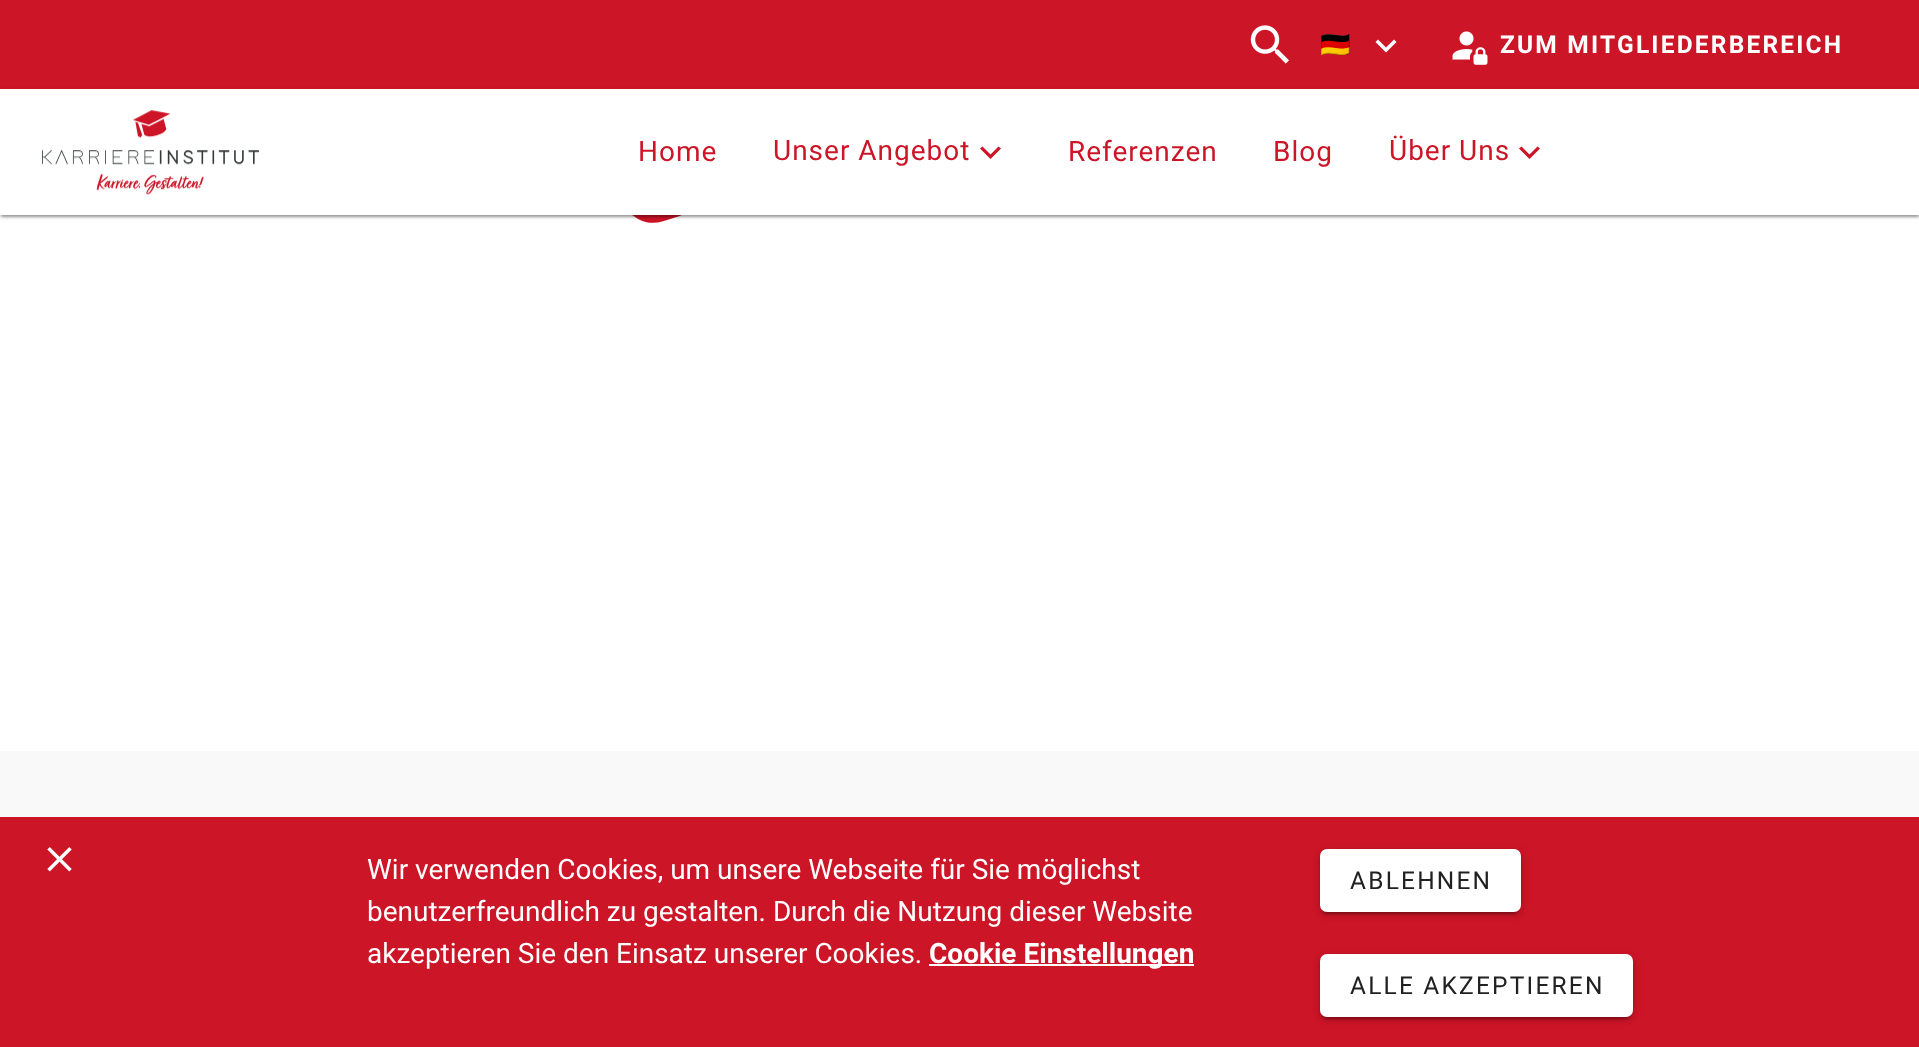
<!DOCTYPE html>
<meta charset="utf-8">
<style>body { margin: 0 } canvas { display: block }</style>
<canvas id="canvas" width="1919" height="1047"></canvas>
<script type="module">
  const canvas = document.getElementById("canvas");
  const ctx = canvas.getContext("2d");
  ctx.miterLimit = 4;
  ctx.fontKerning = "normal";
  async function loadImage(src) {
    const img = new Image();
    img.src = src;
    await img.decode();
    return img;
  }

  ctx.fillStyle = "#ffffff";
  ctx.fillRect(0, 0, 1919, 1047);
  ctx.fillStyle = "#cc1527";
  ctx.fillRect(0, 0, 1919, 89);
  ctx.drawImage(await loadImage("img1.png"), 1250, 25, 39, 39);
  ctx.font = "bold 24.5px Noto Color Emoji";
  ctx.fillStyle = "#1b0305";
  ctx.fillText("🇩🇪", 1320, 53);
  ctx.fillStyle = "#ffffff";
  ctx.beginPath();
  ctx.moveTo(1378, 39.5);
  ctx.lineTo(1386, 47.5);
  ctx.lineTo(1394, 39.5);
  ctx.lineTo(1396.5, 42);
  ctx.lineTo(1386, 52.5);
  ctx.lineTo(1375.5, 42);
  ctx.closePath();
  ctx.fill();
  ctx.drawImage(await loadImage("img2.png"), 1452, 31, 36, 34);
  ctx.letterSpacing = "2.2px";
  ctx.font = "bold 24.5px Roboto";
  ctx.fillText("ZUM MITGLIEDERBEREICH", 1500, 53);
  ctx.drawImage(await loadImage("img4.png"), 632, 215, 50, 8);
  ctx.fillStyle = "rgba(0, 0, 0, 0.12)";
  ctx.filter = "blur(2.5px)";
  ctx.beginPath();
  ctx.rect(0, 91, 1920, 126);
  ctx.fill();
  ctx.filter = "none";
  ctx.fillStyle = "rgba(0, 0, 0, 0.14)";
  ctx.filter = "blur(1px)";
  ctx.beginPath();
  ctx.rect(0, 91, 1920, 126);
  ctx.fill();
  ctx.filter = "none";
  ctx.fillStyle = "rgba(0, 0, 0, 0.2)";
  ctx.filter = "blur(1px)";
  ctx.beginPath();
  ctx.rect(2, 95, 1916, 122);
  ctx.fill();
  ctx.filter = "none";
  ctx.fillStyle = "#ffffff";
  ctx.fillRect(0, 89, 1919, 126);
  ctx.drawImage(await loadImage("img3.png"), 42, 110, 217, 85);
  ctx.letterSpacing = "1px";
  ctx.font = "28px Roboto";
  ctx.fillStyle = "#cc1527";
  ctx.fillText("Home", 638, 161);
  ctx.fillText("Unser Angebot", 773, 160);
  ctx.beginPath();
  ctx.moveTo(982.5, 146.5);
  ctx.lineTo(990.5, 154.5);
  ctx.lineTo(998.5, 146.5);
  ctx.lineTo(1001, 148.5);
  ctx.lineTo(990.5, 159);
  ctx.lineTo(980, 148.5);
  ctx.closePath();
  ctx.fill();
  ctx.fillText("Referenzen", 1068, 161);
  ctx.fillText("Blog", 1273, 161);
  ctx.fillText("Über Uns", 1389, 160);
  ctx.beginPath();
  ctx.moveTo(1521.5, 146.5);
  ctx.lineTo(1529.5, 154.5);
  ctx.lineTo(1537.5, 146.5);
  ctx.lineTo(1540, 148.5);
  ctx.lineTo(1529.5, 159);
  ctx.lineTo(1519, 148.5);
  ctx.closePath();
  ctx.fill();
  ctx.fillStyle = "#f9f9f9";
  ctx.fillRect(0, 751, 1919, 66);
  ctx.fillStyle = "#cc1527";
  ctx.fillRect(0, 817, 1919, 230);
  ctx.drawImage(await loadImage("img5.png"), 47, 847, 25, 25);
  ctx.letterSpacing = "0px";
  ctx.fillStyle = "#ffffff";
  ctx.fillText("Wir verwenden Cookies, um unsere Webseite für Sie möglichst", 367, 879);
  ctx.fillText("benutzerfreundlich zu gestalten. Durch die Nutzung dieser Website", 367, 921);
  ctx.fillText("akzeptieren Sie den Einsatz unserer Cookies.", 367, 963);
  ctx.fillRect(929, 964, 265, 2);
  ctx.font = "bold 28px Roboto";
  ctx.fillText("Cookie Einstellungen", 929, 963);
  ctx.fillStyle = "rgba(0, 0, 0, 0.12)";
  ctx.filter = "blur(4.5px)";
  ctx.beginPath();
  ctx.roundRect(1320, 851, 201, 63, 7);
  ctx.fill();
  ctx.filter = "none";
  ctx.fillStyle = "rgba(0, 0, 0, 0.14)";
  ctx.filter = "blur(2px)";
  ctx.beginPath();
  ctx.roundRect(1320, 852, 201, 63, 7);
  ctx.fill();
  ctx.filter = "none";
  ctx.fillStyle = "rgba(0, 0, 0, 0.2)";
  ctx.filter = "blur(1px)";
  ctx.beginPath();
  ctx.roundRect(1323, 858, 194, 56, 4);
  ctx.fill();
  ctx.filter = "none";
  ctx.fillStyle = "#ffffff";
  ctx.beginPath();
  ctx.roundRect(1320, 849, 201, 63, 7);
  ctx.fill();
  ctx.letterSpacing = "2.2px";
  ctx.font = "24.5px Roboto";
  ctx.fillStyle = "#212121";
  ctx.fillText("ABLEHNEN", 1350, 889);
  ctx.fillStyle = "rgba(0, 0, 0, 0.12)";
  ctx.filter = "blur(4.5px)";
  ctx.beginPath();
  ctx.roundRect(1320, 956, 313, 63, 7);
  ctx.fill();
  ctx.filter = "none";
  ctx.fillStyle = "rgba(0, 0, 0, 0.14)";
  ctx.filter = "blur(2px)";
  ctx.beginPath();
  ctx.roundRect(1320, 957, 313, 63, 7);
  ctx.fill();
  ctx.filter = "none";
  ctx.fillStyle = "rgba(0, 0, 0, 0.2)";
  ctx.filter = "blur(1px)";
  ctx.beginPath();
  ctx.roundRect(1323, 963, 306, 56, 4);
  ctx.fill();
  ctx.filter = "none";
  ctx.fillStyle = "#ffffff";
  ctx.beginPath();
  ctx.roundRect(1320, 954, 313, 63, 7);
  ctx.fill();
  ctx.fillStyle = "#212121";
  ctx.fillText("ALLE AKZEPTIEREN", 1350, 994);
</script>
